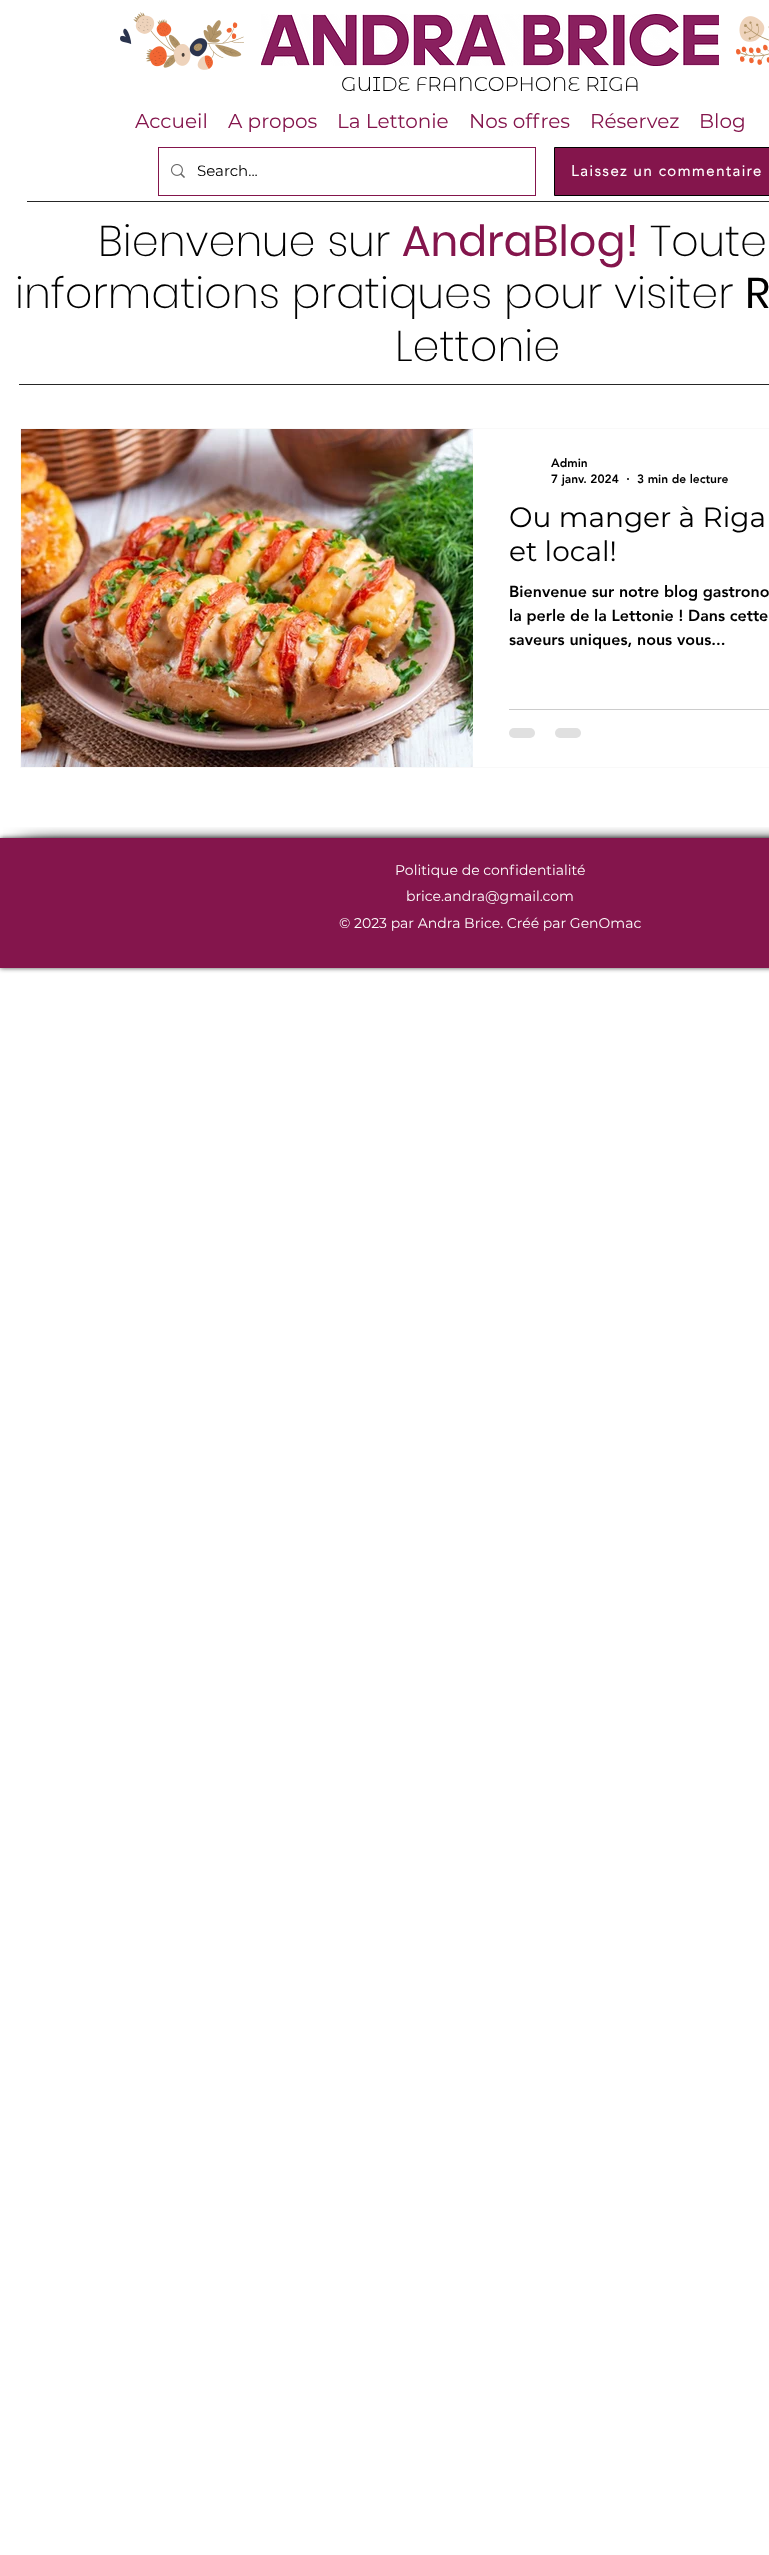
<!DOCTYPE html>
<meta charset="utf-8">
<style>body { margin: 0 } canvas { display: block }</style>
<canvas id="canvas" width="769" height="2555"></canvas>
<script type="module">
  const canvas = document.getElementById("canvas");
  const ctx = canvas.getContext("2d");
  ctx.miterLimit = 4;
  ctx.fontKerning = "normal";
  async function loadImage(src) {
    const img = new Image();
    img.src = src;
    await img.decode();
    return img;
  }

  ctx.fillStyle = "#ffffff";
  ctx.fillRect(0, 0, 769, 2555);
  ctx.drawImage(await loadImage("img1.png"), 120, 12, 124, 58);
  ctx.drawImage(await loadImage("img2.png"), 261, 14, 458, 52);
  ctx.drawImage(await loadImage("img3.png"), 736, 16, 33, 49);
  ctx.font = "300 20px Montserrat Alternates";
  ctx.fillStyle = "#000000";
  ctx.fillText("GUIDE FRANCOPHONE RIGA", 341, 91);
  ctx.font = "20px Montserrat";
  ctx.fillStyle = "#84154c";
  ctx.fillText("Accueil", 135, 128);
  ctx.fillText("A propos", 228, 128);
  ctx.fillText("La Lettonie", 337, 128);
  ctx.fillText("Nos offres", 469, 128);
  ctx.fillText("Réservez", 590, 128);
  ctx.fillText("Blog", 699, 128);
  ctx.strokeStyle = "#84154c";
  ctx.strokeRect(158.5, 147.5, 377, 48);
  ctx.drawImage(await loadImage("img4.png"), 171, 164, 14, 14);
  ctx.font = "15px Montserrat";
  ctx.fillStyle = "#000000";
  ctx.fillText("Search...", 197, 176);
  ctx.fillStyle = "#84154c";
  ctx.beginPath();
  ctx.rect(554.5, 147.5, 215, 48);
  ctx.fill();
  ctx.strokeStyle = "#000000";
  ctx.stroke();
  ctx.letterSpacing = "1.5px";
  ctx.font = "bold 15px 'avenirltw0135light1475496'";
  ctx.fillStyle = "#ffffff";
  ctx.fillText("Laissez un commentaire", 571, 176);
  ctx.fillStyle = "#262626";
  ctx.fillRect(27, 201, 742, 1);
  ctx.letterSpacing = "0px";
  ctx.font = "200 43px Poppins";
  ctx.fillStyle = "#000000";
  ctx.fillText("Bienvenue sur", 98, 256);
  ctx.font = "43px Poppins";
  ctx.fillStyle = "#84154c";
  ctx.fillText("AndraBlog!", 402, 256);
  ctx.font = "200 43px Poppins";
  ctx.fillStyle = "#000000";
  ctx.fillText("Toute", 650, 256);
  ctx.fillText("informations pratiques pour visiter", 15, 308);
  ctx.font = "43px Poppins";
  ctx.fillText("R", 745, 308);
  ctx.font = "200 43px Poppins";
  ctx.fillText("Lettonie", 395, 361);
  ctx.fillStyle = "#262626";
  ctx.fillRect(19, 384, 750, 1);
  ctx.strokeStyle = "#f9f9f9";
  ctx.strokeRect(20.5, 428.5, 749, 339);
  ctx.drawImage(await loadImage("img5.png"), 21, 429, 452, 338);
  ctx.font = "900 12px 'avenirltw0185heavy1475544'";
  ctx.fillStyle = "#000000";
  ctx.fillText("Admin", 551, 467);
  ctx.fillText("7 janv. 2024", 551, 483);
  ctx.beginPath();
  ctx.arc(628, 479, 1, 0, Math.PI * 2);
  ctx.fill();
  ctx.fillText("3 min de lecture", 637, 483);
  ctx.font = "28px Montserrat";
  ctx.fillText("Ou manger à Riga", 509, 527);
  ctx.fillText("et local!", 509, 561);
  ctx.font = "900 16px 'avenirltw0185heavy1475544'";
  ctx.fillText("Bienvenue sur notre blog gastrono", 509, 597);
  ctx.fillText("la perle de la Lettonie ! Dans cette", 509, 621);
  ctx.fillText("saveurs uniques, nous vous...", 509, 645);
  ctx.fillStyle = "#cccccc";
  ctx.fillRect(509, 709, 260, 1);
  ctx.fillStyle = "#e0e0e0";
  ctx.beginPath();
  ctx.roundRect(509, 728, 26, 10, 5);
  ctx.fill();
  ctx.beginPath();
  ctx.roundRect(555, 728, 26, 10, 5);
  ctx.fill();
  ctx.fillStyle = "rgba(0, 0, 0, 0.7)";
  ctx.filter = "blur(2.5px)";
  ctx.beginPath();
  ctx.rect(0, 838, 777, 130);
  ctx.fill();
  ctx.filter = "none";
  ctx.fillStyle = "#84154c";
  ctx.fillRect(0, 838, 769, 130);
  ctx.drawImage(await loadImage("img6.png"), 3, 827, 97, 11);
  ctx.drawImage(await loadImage("img7.png"), 100, 827, 669, 11);
  ctx.font = "14px Montserrat";
  ctx.fillStyle = "#ffffff";
  ctx.fillText("Politique de confidentialité", 395, 875);
  ctx.fillText("brice.andra@gmail.com", 406, 901);
  ctx.fillText("© 2023 par Andra Brice. Créé par GenOmac", 339, 928);
</script>
